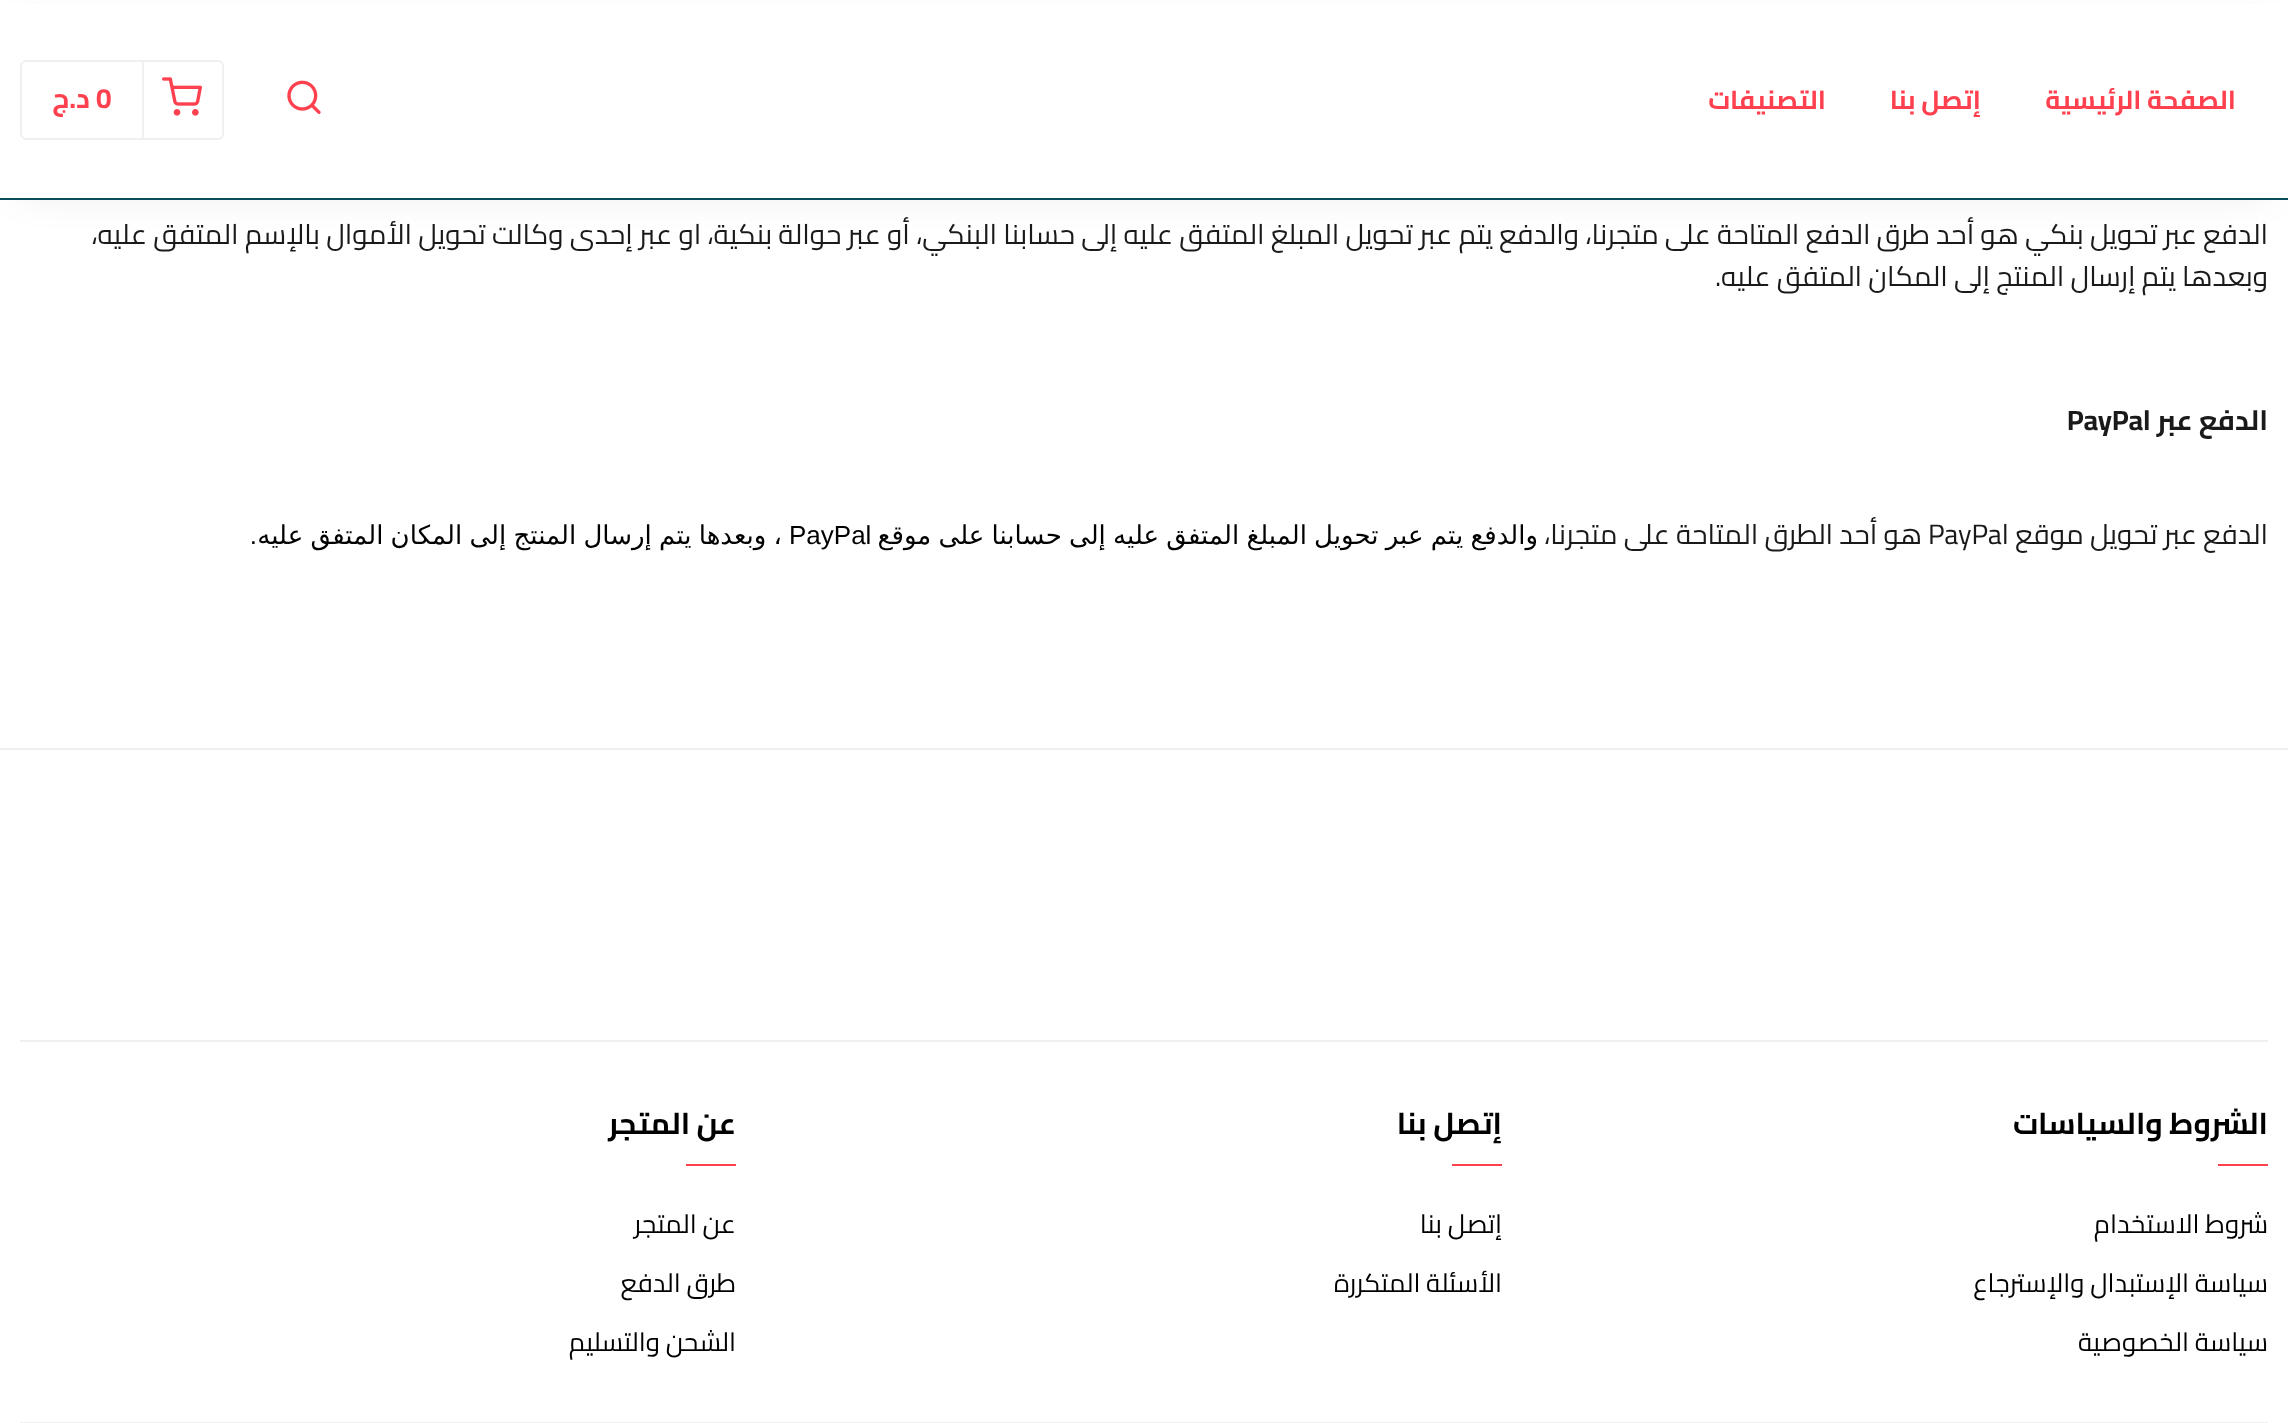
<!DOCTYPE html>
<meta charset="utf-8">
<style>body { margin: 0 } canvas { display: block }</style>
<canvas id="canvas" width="2288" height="1423"></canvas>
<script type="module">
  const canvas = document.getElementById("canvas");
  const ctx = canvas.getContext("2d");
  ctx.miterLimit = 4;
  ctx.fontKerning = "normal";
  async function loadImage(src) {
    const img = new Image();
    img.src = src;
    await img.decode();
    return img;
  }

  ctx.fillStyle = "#ffffff";
  ctx.fillRect(0, 0, 2288, 1423);
  ctx.fillStyle = "rgba(0, 0, 0, 0.1)";
  ctx.filter = "blur(20px)";
  ctx.beginPath();
  ctx.rect(20, 30, 2248, 160);
  ctx.fill();
  ctx.filter = "none";
  ctx.fillStyle = "#ffffff";
  ctx.fillRect(0, 4, 2288, 194);
  ctx.fillStyle = "#094d58";
  ctx.fillRect(0, 198, 2288, 2);
  ctx.direction = "rtl";
  ctx.font = "bold 26px Cairo";
  ctx.fillStyle = "#ff414f";
  ctx.fillText("الصفحة الرئيسية", 2236, 109);
  ctx.fillText("إتصل بنا", 1981, 109);
  ctx.fillText("التصنيفات", 1826, 109);
  ctx.drawImage(await loadImage("img1.png"), 287, 80, 34, 34);
  ctx.beginPath();
  ctx.roundRect(21, 61, 202, 78, 5);
  ctx.strokeStyle = "#f0f0f0";
  ctx.lineWidth = 2;
  ctx.stroke();
  ctx.fillStyle = "#f0f0f0";
  ctx.fillRect(142, 62, 2, 76);
  ctx.drawImage(await loadImage("img2.png"), 162, 77, 40, 39);
  ctx.direction = "ltr";
  ctx.font = "bold 28px Cairo";
  ctx.fillStyle = "#ff414f";
  ctx.fillText("0", 96, 108);
  ctx.direction = "rtl";
  ctx.fillText("د.ج", 90, 108);
  ctx.font = "28px Cairo";
  ctx.fillStyle = "#1a1a1a";
  ctx.fillText("الدفع عبر تحويل بنكي هو أحد طرق الدفع المتاحة على متجرنا، والدفع يتم عبر تحويل المبلغ المتفق عليه إلى حسابنا البنكي، أو عبر حوالة بنكية، او عبر إحدى وكالت تحويل الأموال بالإسم المتفق عليه،", 2268, 244);
  ctx.fillText("وبعدها يتم إرسال المنتج إلى المكان المتفق عليه.", 2268, 286);
  ctx.font = "bold 28px Cairo";
  ctx.fillText("الدفع عبر", 2268, 430);
  ctx.direction = "ltr";
  ctx.fillText("PayPal", 2067, 430);
  ctx.direction = "rtl";
  ctx.font = "28px Cairo";
  ctx.fillText("الدفع عبر تحويل موقع", 2268, 544);
  ctx.direction = "ltr";
  ctx.fillText("PayPal", 1928, 544);
  ctx.direction = "rtl";
  ctx.fillText("هو أحد الطرق المتاحة على متجرنا،", 1922, 544);
  ctx.wordSpacing = "-1px";
  ctx.font = "26px DejaVu Sans";
  ctx.fillStyle = "#000000";
  ctx.fillText("والدفع يتم عبر تحويل المبلغ المتفق عليه إلى حسابنا على موقع", 1538, 544);
  ctx.wordSpacing = "0px";
  ctx.direction = "ltr";
  ctx.font = "26px Liberation Sans";
  ctx.fillText("PayPal", 789, 544);
  ctx.wordSpacing = "-1px";
  ctx.direction = "rtl";
  ctx.font = "26px DejaVu Sans";
  ctx.fillText("، وبعدها يتم إرسال المنتج إلى المكان المتفق عليه", 782, 544);
  ctx.wordSpacing = "0px";
  ctx.font = "26px Liberation Sans";
  ctx.fillText(".", 257, 544);
  ctx.fillStyle = "#f0f0f0";
  ctx.fillRect(0, 748, 2288, 2);
  ctx.fillRect(20, 1040, 2248, 2);
  ctx.fillRect(20, 1422, 2248, 1);
  ctx.font = "bold 30px Cairo";
  ctx.fillStyle = "#000000";
  ctx.fillText("الشروط والسياسات", 2268, 1134);
  ctx.fillStyle = "#ff414f";
  ctx.fillRect(2218, 1164, 50, 2);
  ctx.font = "26px Cairo";
  ctx.fillStyle = "#000000";
  ctx.fillText("شروط الاستخدام", 2268, 1233);
  ctx.fillText("سياسة الإستبدال والإسترجاع", 2268, 1292);
  ctx.fillText("سياسة الخصوصية", 2268, 1351);
  ctx.font = "bold 30px Cairo";
  ctx.fillText("إتصل بنا", 1502, 1134);
  ctx.fillStyle = "#ff414f";
  ctx.fillRect(1452, 1164, 50, 2);
  ctx.font = "26px Cairo";
  ctx.fillStyle = "#000000";
  ctx.fillText("إتصل بنا", 1502, 1233);
  ctx.fillText("الأسئلة المتكررة", 1502, 1292);
  ctx.font = "bold 30px Cairo";
  ctx.fillText("عن المتجر", 736, 1134);
  ctx.fillStyle = "#ff414f";
  ctx.fillRect(686, 1164, 50, 2);
  ctx.font = "26px Cairo";
  ctx.fillStyle = "#000000";
  ctx.fillText("عن المتجر", 736, 1233);
  ctx.fillText("طرق الدفع", 736, 1292);
  ctx.fillText("الشحن والتسليم", 736, 1351);
</script>
